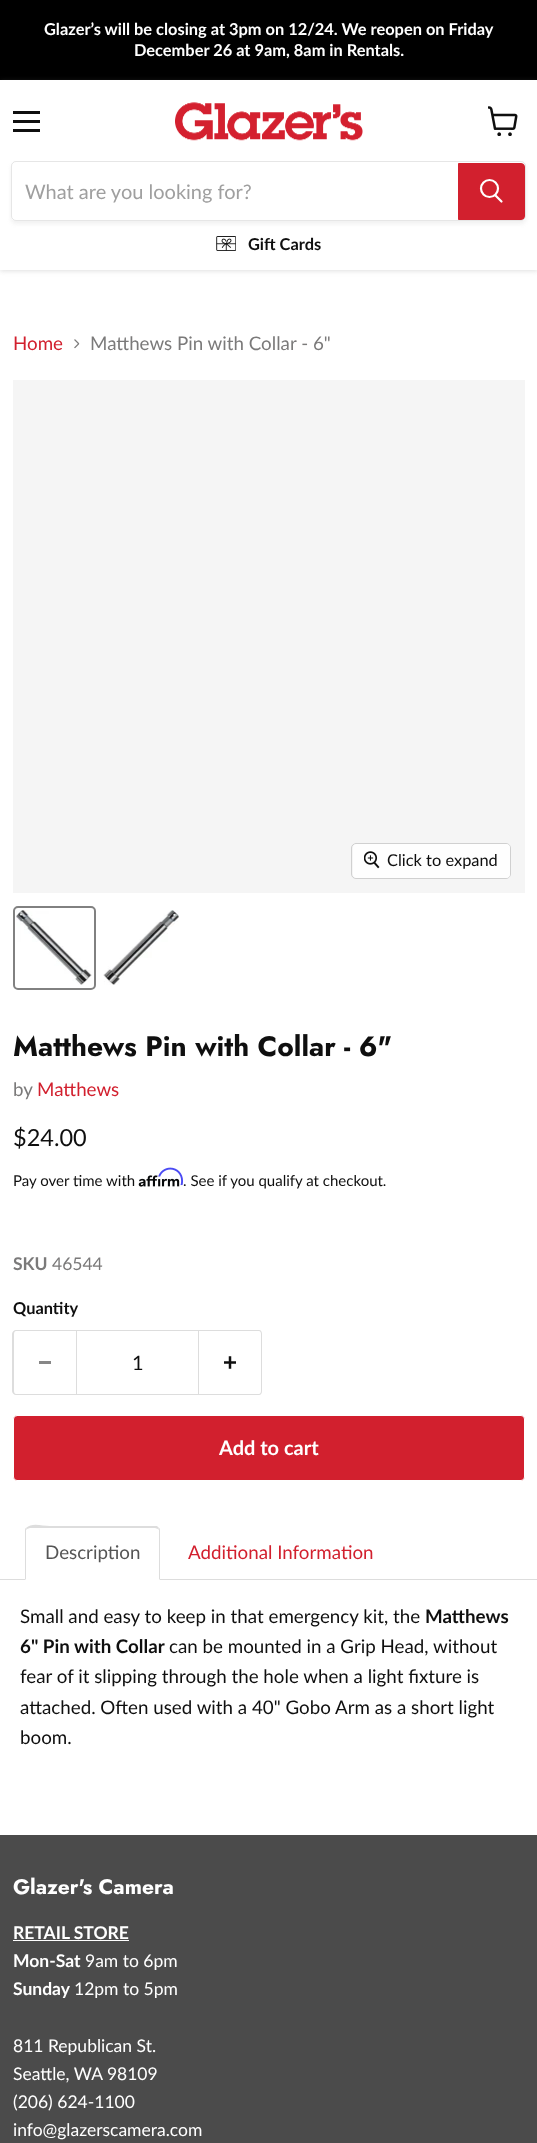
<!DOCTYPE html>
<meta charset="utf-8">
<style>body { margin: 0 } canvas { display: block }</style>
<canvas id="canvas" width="537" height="2143"></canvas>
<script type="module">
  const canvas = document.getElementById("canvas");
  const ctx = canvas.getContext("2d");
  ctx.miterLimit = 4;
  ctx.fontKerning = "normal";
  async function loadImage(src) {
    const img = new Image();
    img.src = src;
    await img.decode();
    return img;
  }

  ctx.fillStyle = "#ffffff";
  ctx.fillRect(0, 0, 537, 2143);
  ctx.fillStyle = "#000000";
  ctx.fillRect(0, 0, 537, 80);
  ctx.font = "bold 16.4px Lato";
  ctx.fillStyle = "#ffffff";
  ctx.fillText("Glazer’s will be closing at 3pm on 12/24. We reopen on Friday", 44, 35);
  ctx.fillText("December 26 at 9am, 8am in Rentals.", 134, 56);
  ctx.save();
  ctx.beginPath();
  ctx.moveTo(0, 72);
  ctx.lineTo(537, 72);
  ctx.lineTo(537, 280);
  ctx.lineTo(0, 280);
  ctx.closePath();
  ctx.moveTo(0, 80);
  ctx.lineTo(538, 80);
  ctx.lineTo(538, 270);
  ctx.lineTo(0, 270);
  ctx.closePath();
  ctx.clip("evenodd");
  ctx.fillStyle = "rgba(128, 128, 128, 0.25)";
  ctx.filter = "blur(2.5px)";
  ctx.beginPath();
  ctx.rect(0, 81, 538, 190);
  ctx.fill();
  ctx.filter = "none";
  ctx.restore();
  ctx.fillStyle = "#0f0f0f";
  ctx.fillRect(13, 111, 27, 3);
  ctx.fillRect(13, 120, 27, 3);
  ctx.fillRect(13, 129, 27, 3);
  ctx.drawImage(await loadImage("img1.png"), 488, 106, 30, 30);
  ctx.drawImage(await loadImage("img2.png"), 175, 102, 188, 39);
  ctx.save();
  ctx.beginPath();
  ctx.moveTo(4, 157);
  ctx.lineTo(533, 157);
  ctx.lineTo(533, 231);
  ctx.lineTo(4, 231);
  ctx.closePath();
  ctx.moveTo(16, 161);
  ctx.lineTo(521, 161);
  ctx.bezierCurveTo(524, 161, 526, 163, 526, 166);
  ctx.lineTo(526, 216);
  ctx.bezierCurveTo(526, 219, 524, 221, 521, 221);
  ctx.lineTo(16, 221);
  ctx.bezierCurveTo(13, 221, 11, 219, 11, 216);
  ctx.lineTo(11, 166);
  ctx.bezierCurveTo(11, 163, 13, 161, 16, 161);
  ctx.closePath();
  ctx.clip("evenodd");
  ctx.fillStyle = "rgba(128, 128, 128, 0.11)";
  ctx.filter = "blur(2px)";
  ctx.beginPath();
  ctx.roundRect(11, 164, 515, 60, 5);
  ctx.fill();
  ctx.filter = "none";
  ctx.restore();
  ctx.beginPath();
  ctx.roundRect(11.5, 161.5, 514, 59, 4.5);
  ctx.strokeStyle = "rgba(128, 128, 128, 0.2)";
  ctx.stroke();
  ctx.font = "20px Lato";
  ctx.fillStyle = "#9f9f9f";
  ctx.fillText("What are you looking for?", 25, 199);
  ctx.fillStyle = "#d2202e";
  ctx.beginPath();
  ctx.roundRect(458.5, 163.5, 66, 56, [0, 3.5, 3.5, 0]);
  ctx.fill();
  ctx.strokeStyle = "#d2202e";
  ctx.stroke();
  ctx.beginPath();
  ctx.moveTo(501.5, 201.5);
  ctx.lineTo(495.5, 195.5);
  ctx.strokeStyle = "#ffffff";
  ctx.lineWidth = 2.2;
  ctx.lineCap = "round";
  ctx.stroke();
  ctx.beginPath();
  ctx.arc(489.5, 188.5, 8.5, 0, Math.PI * 2);
  ctx.stroke();
  ctx.drawImage(await loadImage("img3.png"), 216, 236, 20, 15);
  ctx.font = "bold 16.4px Lato";
  ctx.fillStyle = "#0f0f0f";
  ctx.fillText("Gift Cards", 248, 250);
  ctx.font = "18.75px Lato";
  ctx.fillStyle = "#d2202e";
  ctx.fillText("Home", 13, 350);
  ctx.drawImage(await loadImage("img4.png"), 74, 339, 6, 10);
  ctx.fillStyle = "#7b7a7a";
  ctx.fillText("Matthews Pin with Collar - 6\"", 90, 350);
  ctx.fillStyle = "#f5f5f5";
  ctx.fillRect(13, 380, 512, 513);
  ctx.beginPath();
  ctx.roundRect(351.5, 843.5, 159, 35, 4.5);
  ctx.strokeStyle = "#d0d0d0";
  ctx.lineWidth = 1;
  ctx.stroke();
  ctx.fillStyle = "rgba(255, 255, 255, 0.9)";
  ctx.beginPath();
  ctx.roundRect(353, 844, 157, 34, 4);
  ctx.fill();
  ctx.drawImage(await loadImage("img5.png"), 364, 851, 16, 18);
  ctx.font = "16.4px Lato";
  ctx.fillStyle = "#0f0f0f";
  ctx.fillText("Click to expand", 387, 866);
  ctx.beginPath();
  ctx.roundRect(14, 907, 81, 82, 4);
  ctx.strokeStyle = "#818181";
  ctx.lineWidth = 2;
  ctx.stroke();
  ctx.drawImage(await loadImage("img6.png"), 16, 910, 76, 75);
  ctx.drawImage(await loadImage("img7.png"), 103, 910, 76, 75);
  ctx.font = "bold 28.1px Jost";
  ctx.fillText("Matthews Pin with Collar - 6\"", 13, 1056);
  ctx.font = "18.75px Lato";
  ctx.fillStyle = "#7b7a7a";
  ctx.fillText("by", 13, 1096);
  ctx.fillStyle = "#d2202e";
  ctx.fillText("Matthews", 37, 1096);
  ctx.font = "23.5px Lato";
  ctx.fillStyle = "#0f0f0f";
  ctx.fillText("$24.00", 13, 1146);
  ctx.font = "15px Lato";
  ctx.fillText("Pay over time with", 13, 1186);
  ctx.drawImage(await loadImage("img9.png"), 138, 1175, 42, 12);
  ctx.drawImage(await loadImage("img8.png"), 158, 1167, 25, 19);
  ctx.fillText(". See if you qualify at checkout.", 183, 1186);
  ctx.font = "bold 17.5px Lato";
  ctx.fillStyle = "#7b7a7a";
  ctx.fillText("SKU", 13, 1270);
  ctx.font = "17.5px Lato";
  ctx.fillText("46544", 52, 1270);
  ctx.font = "bold 16.4px Lato";
  ctx.fillStyle = "#0f0f0f";
  ctx.fillText("Quantity", 13, 1314);
  ctx.fillStyle = "#dddddd";
  ctx.beginPath();
  ctx.moveTo(16, 1330);
  ctx.lineTo(76, 1330);
  ctx.lineTo(76, 1395);
  ctx.lineTo(16, 1395);
  ctx.bezierCurveTo(14, 1395, 12, 1393, 12, 1391);
  ctx.lineTo(12, 1334);
  ctx.bezierCurveTo(12, 1332, 14, 1330, 16, 1330);
  ctx.closePath();
  ctx.moveTo(16, 1331);
  ctx.lineTo(76, 1331);
  ctx.lineTo(76, 1394);
  ctx.lineTo(16, 1394);
  ctx.bezierCurveTo(15, 1394, 14, 1393, 14, 1391);
  ctx.lineTo(14, 1334);
  ctx.bezierCurveTo(14, 1332, 15, 1331, 16, 1331);
  ctx.closePath();
  ctx.fill("evenodd");
  ctx.fillStyle = "#878787";
  ctx.fillRect(39, 1361, 12, 3);
  ctx.strokeStyle = "#dddddd";
  ctx.lineWidth = 1;
  ctx.strokeRect(76.5, 1330.5, 122, 64);
  ctx.font = "20px Lato";
  ctx.fillStyle = "#0f0f0f";
  ctx.fillText("1", 132, 1370);
  ctx.fillStyle = "#dddddd";
  ctx.beginPath();
  ctx.moveTo(199, 1330);
  ctx.lineTo(259, 1330);
  ctx.bezierCurveTo(261, 1330, 262, 1332, 262, 1334);
  ctx.lineTo(262, 1391);
  ctx.bezierCurveTo(262, 1393, 261, 1395, 259, 1395);
  ctx.lineTo(199, 1395);
  ctx.closePath();
  ctx.moveTo(199, 1331);
  ctx.lineTo(259, 1331);
  ctx.bezierCurveTo(260, 1331, 261, 1332, 261, 1334);
  ctx.lineTo(261, 1391);
  ctx.bezierCurveTo(261, 1393, 260, 1394, 259, 1394);
  ctx.lineTo(199, 1394);
  ctx.closePath();
  ctx.fill("evenodd");
  ctx.drawImage(await loadImage("img10.png"), 224, 1356, 12, 13);
  ctx.fillStyle = "#d2202e";
  ctx.beginPath();
  ctx.roundRect(13.5, 1415.5, 511, 65, 3.5);
  ctx.fill();
  ctx.strokeStyle = "#ffffff";
  ctx.stroke();
  ctx.font = "bold 20px Lato";
  ctx.fillStyle = "#ffffff";
  ctx.fillText("Add to cart", 219, 1455);
  ctx.fillStyle = "#dddddd";
  ctx.fillRect(0, 1579, 537, 1);
  ctx.fillStyle = "#ffffff";
  ctx.beginPath();
  ctx.roundRect(25, 1526, 135, 54, [5, 5, 0, 0]);
  ctx.fill();
  ctx.fillStyle = "#dddddd";
  ctx.beginPath();
  ctx.moveTo(30, 1528);
  ctx.lineTo(27, 1529);
  ctx.lineTo(26, 1528);
  ctx.bezierCurveTo(32, 1522, 42, 1526, 50, 1526);
  ctx.lineTo(157, 1526);
  ctx.lineTo(159, 1528);
  ctx.lineTo(158, 1529);
  ctx.lineTo(155, 1528);
  ctx.closePath();
  ctx.fill();
  ctx.beginPath();
  ctx.moveTo(160, 1580);
  ctx.lineTo(160, 1531);
  ctx.bezierCurveTo(160, 1530, 160, 1528, 159, 1528);
  ctx.lineTo(158, 1529);
  ctx.lineTo(159, 1530);
  ctx.lineTo(159, 1579);
  ctx.closePath();
  ctx.fill();
  ctx.beginPath();
  ctx.moveTo(25, 1580);
  ctx.lineTo(26, 1579);
  ctx.lineTo(26, 1530);
  ctx.lineTo(27, 1529);
  ctx.lineTo(26, 1528);
  ctx.bezierCurveTo(25, 1528, 25, 1530, 25, 1531);
  ctx.closePath();
  ctx.fill();
  ctx.font = "18.75px Lato";
  ctx.fillStyle = "#555555";
  ctx.fillText("Description", 45, 1559);
  ctx.fillStyle = "#d2202e";
  ctx.fillText("Additional Information", 188, 1559);
  ctx.fillStyle = "#0f0f0f";
  ctx.fillText("Small and easy to keep in that emergency kit, the", 20, 1623);
  ctx.font = "bold 18.75px Lato";
  ctx.fillText("Matthews", 425, 1623);
  ctx.fillText("6\" Pin with Collar", 20, 1653);
  ctx.font = "18.75px Lato";
  ctx.fillText("can be mounted in a Grip Head, without", 169, 1653);
  ctx.fillText("fear of it slipping through the hole when a light fixture is", 20, 1683);
  ctx.fillText("attached. Often used with a 40\" Gobo Arm as a short light", 20, 1714);
  ctx.fillText("boom.", 20, 1744);
  ctx.fillStyle = "#4b4b4b";
  ctx.fillRect(0, 1835, 537, 308);
  ctx.font = "bold 21px Jost";
  ctx.fillStyle = "#ffffff";
  ctx.fillText("Glazer's Camera", 13, 1894);
  ctx.font = "bold 17.5px Lato";
  ctx.fillText("RETAIL STORE", 13, 1939);
  ctx.fillRect(13, 1940, 116, 1);
  ctx.fillText("Mon-Sat", 13, 1967);
  ctx.font = "17.5px Lato";
  ctx.fillText("9am to 6pm", 85, 1967);
  ctx.font = "bold 17.5px Lato";
  ctx.fillText("Sunday", 13, 1995);
  ctx.font = "17.5px Lato";
  ctx.fillText("12pm to 5pm", 74, 1995);
  ctx.fillText("811 Republican St.", 13, 2052);
  ctx.fillText("Seattle, WA 98109", 13, 2080);
  ctx.fillText("(206) 624-1100", 13, 2108);
  ctx.fillText("info@glazerscamera.com", 13, 2136);
</script>
